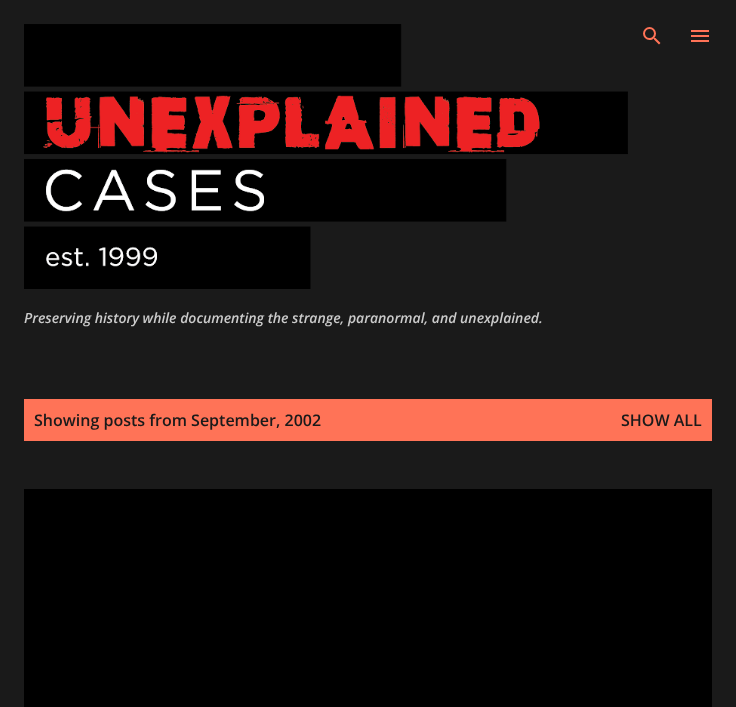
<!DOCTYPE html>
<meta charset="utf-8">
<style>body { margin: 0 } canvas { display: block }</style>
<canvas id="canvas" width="736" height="707"></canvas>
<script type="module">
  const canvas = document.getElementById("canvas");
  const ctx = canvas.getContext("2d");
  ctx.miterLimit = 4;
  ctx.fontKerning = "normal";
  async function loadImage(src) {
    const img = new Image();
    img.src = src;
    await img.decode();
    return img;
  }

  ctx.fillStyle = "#1a1a1a";
  ctx.fillRect(0, 0, 736, 707);
  ctx.drawImage(await loadImage("img1.png"), 691, 30, 18, 12);
  ctx.drawImage(await loadImage("img2.png"), 643, 27, 18, 18);
  ctx.drawImage(await loadImage("img3.png"), 24, 24, 604, 265);
  ctx.font = "italic 600 14px Open Sans";
  ctx.fillStyle = "#cccccc";
  ctx.fillText("Preserving history while documenting the strange, paranormal, and unexplained.", 24, 323);
  ctx.fillStyle = "#ff7357";
  ctx.fillRect(24, 399, 688, 42);
  ctx.font = "600 16px Open Sans";
  ctx.fillStyle = "#1a1a1a";
  ctx.fillText("Showing posts from September, 2002", 34, 426);
  ctx.fillText("SHOW ALL", 621, 426);
  ctx.fillStyle = "#000000";
  ctx.fillRect(24, 489, 688, 218);
</script>
